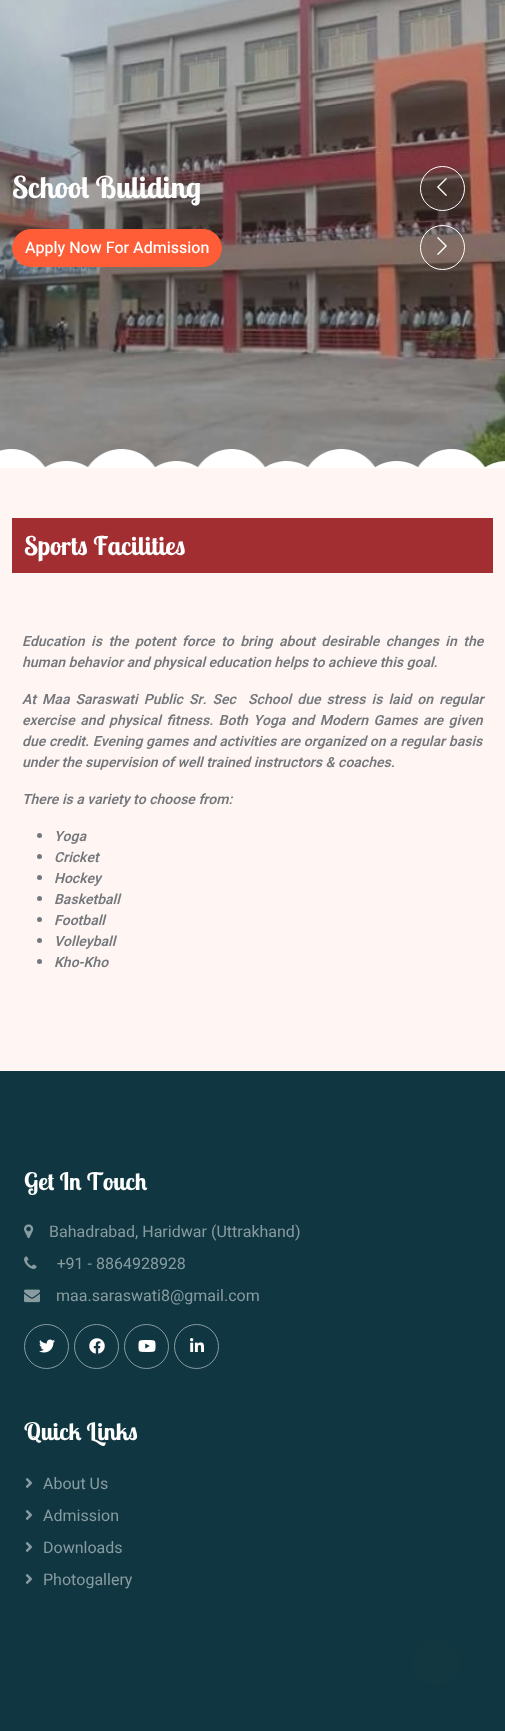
<!DOCTYPE html>
<meta charset="utf-8">
<style>body { margin: 0 } canvas { display: block }</style>
<canvas id="canvas" width="505" height="1731"></canvas>
<script type="module">
  const canvas = document.getElementById("canvas");
  const ctx = canvas.getContext("2d");
  ctx.miterLimit = 4;
  ctx.fontKerning = "none";
  async function loadImage(src) {
    const img = new Image();
    img.src = src;
    await img.decode();
    return img;
  }

  ctx.fillStyle = "#fff5f3";
  ctx.fillRect(0, 0, 505, 1731);
  ctx.drawImage(await loadImage("img1.png"), 0, 0, 505, 468);
  ctx.font = "bold 30px Lobster Two";
  ctx.fillStyle = "#ffffff";
  ctx.fillText("School Buliding", 12, 198);
  ctx.fillStyle = "#fe5d37";
  ctx.beginPath();
  ctx.roundRect(12.5, 229.5, 209, 37, 18.5);
  ctx.fill();
  ctx.strokeStyle = "#fe5d37";
  ctx.stroke();
  ctx.font = "500 16px Heebo";
  ctx.fillStyle = "#ffffff";
  ctx.fillText("Apply Now For Admission", 25, 253);
  ctx.beginPath();
  ctx.arc(442.5, 188.5, 22, 0, Math.PI * 2);
  ctx.strokeStyle = "#ffffff";
  ctx.stroke();
  ctx.drawImage(await loadImage("img2.png"), 437, 178, 10, 18);
  ctx.beginPath();
  ctx.arc(442.5, 247.5, 22, 0, Math.PI * 2);
  ctx.stroke();
  ctx.drawImage(await loadImage("img3.png"), 437, 237, 10, 18);
  ctx.drawImage(await loadImage("img4.png"), 0, 449, 505, 19);
  ctx.fillStyle = "#a32e32";
  ctx.fillRect(12, 518, 481, 55);
  ctx.font = "bold 25.75px Lobster Two";
  ctx.fillStyle = "#ffffff";
  ctx.fillText("Sports Facilities", 24, 555);
  ctx.wordSpacing = "3px";
  ctx.font = "italic 600 14px Heebo";
  ctx.fillStyle = "#74787c";
  ctx.fillText("Education is the potent force to bring about desirable changes in the", 22, 646);
  ctx.wordSpacing = "0px";
  ctx.fillText("human behavior and physical education helps to achieve this goal.", 22, 667);
  ctx.wordSpacing = "2.6px";
  ctx.fillText("At Maa Saraswati Public Sr. Sec  School due stress is laid on regular", 22, 704);
  ctx.wordSpacing = "2px";
  ctx.fillText("exercise and physical fitness. Both Yoga and Modern Games are given", 22, 725);
  ctx.wordSpacing = "0.25px";
  ctx.fillText("due credit. Evening games and activities are organized on a regular basis", 22, 746);
  ctx.wordSpacing = "0px";
  ctx.fillText("under the supervision of well trained instructors & coaches.", 22, 767);
  ctx.fillText("There is a variety to choose from:", 22, 804);
  ctx.beginPath();
  ctx.arc(39.5, 835.5, 2.5, 0, Math.PI * 2);
  ctx.fill();
  ctx.fillText("Yoga", 54, 841);
  ctx.beginPath();
  ctx.arc(39.5, 856.5, 2.5, 0, Math.PI * 2);
  ctx.fill();
  ctx.fillText("Cricket", 54, 862);
  ctx.beginPath();
  ctx.arc(39.5, 877.5, 2.5, 0, Math.PI * 2);
  ctx.fill();
  ctx.fillText("Hockey", 54, 883);
  ctx.beginPath();
  ctx.arc(39.5, 898.5, 2.5, 0, Math.PI * 2);
  ctx.fill();
  ctx.fillText("Basketball", 54, 904);
  ctx.beginPath();
  ctx.arc(39.5, 919.5, 2.5, 0, Math.PI * 2);
  ctx.fill();
  ctx.fillText("Football", 54, 925);
  ctx.beginPath();
  ctx.arc(39.5, 940.5, 2.5, 0, Math.PI * 2);
  ctx.fill();
  ctx.fillText("Volleyball", 54, 946);
  ctx.beginPath();
  ctx.arc(39.5, 961.5, 2.5, 0, Math.PI * 2);
  ctx.fill();
  ctx.fillText("Kho-Kho", 54, 967);
  ctx.fillStyle = "#103741";
  ctx.fillRect(0, 1071, 505, 660);
  ctx.font = "bold 24px Lobster Two";
  ctx.fillStyle = "#ffffff";
  ctx.fillText("Get In Touch", 24, 1190);
  ctx.drawImage(await loadImage("img5.png"), 24, 1224, 10, 15);
  ctx.font = "16px Heebo";
  ctx.fillStyle = "#889ba0";
  ctx.fillText("Bahadrabad, Haridwar (Uttrakhand)", 49, 1237);
  ctx.drawImage(await loadImage("img6.png"), 24, 1256, 13, 13);
  ctx.fillText("+91 - 8864928928", 57, 1269);
  ctx.drawImage(await loadImage("img7.png"), 24, 1289, 16, 14);
  ctx.fillText("maa.saraswati8@gmail.com", 56, 1301);
  ctx.beginPath();
  ctx.arc(46.5, 1346.5, 22, 0, Math.PI * 2);
  ctx.strokeStyle = "#889ba0";
  ctx.stroke();
  ctx.drawImage(await loadImage("img8.png"), 39, 1339, 16, 14);
  ctx.beginPath();
  ctx.arc(96.5, 1346.5, 22, 0, Math.PI * 2);
  ctx.stroke();
  ctx.drawImage(await loadImage("img9.png"), 89, 1338, 16, 16);
  ctx.beginPath();
  ctx.arc(146.5, 1346.5, 22, 0, Math.PI * 2);
  ctx.stroke();
  ctx.drawImage(await loadImage("img10.png"), 138, 1340, 18, 12);
  ctx.beginPath();
  ctx.arc(196.5, 1346.5, 22, 0, Math.PI * 2);
  ctx.stroke();
  ctx.drawImage(await loadImage("img11.png"), 190, 1338, 14, 14);
  ctx.font = "bold 24px Lobster Two";
  ctx.fillStyle = "#ffffff";
  ctx.fillText("Quick Links", 24, 1440);
  ctx.drawImage(await loadImage("img12.png"), 25, 1478, 8, 10);
  ctx.font = "16px Heebo";
  ctx.fillStyle = "#889ba0";
  ctx.fillText("About Us", 43, 1489);
  ctx.drawImage(await loadImage("img12.png"), 25, 1510, 8, 10);
  ctx.fillText("Admission", 43, 1521);
  ctx.drawImage(await loadImage("img12.png"), 25, 1542, 8, 10);
  ctx.fillText("Downloads", 43, 1553);
  ctx.drawImage(await loadImage("img12.png"), 25, 1574, 8, 10);
  ctx.fillText("Photogallery", 43, 1585);
  ctx.fillStyle = "#133741";
  ctx.beginPath();
  ctx.arc(436, 1662, 24, 0, Math.PI * 2);
  ctx.fill();
</script>
